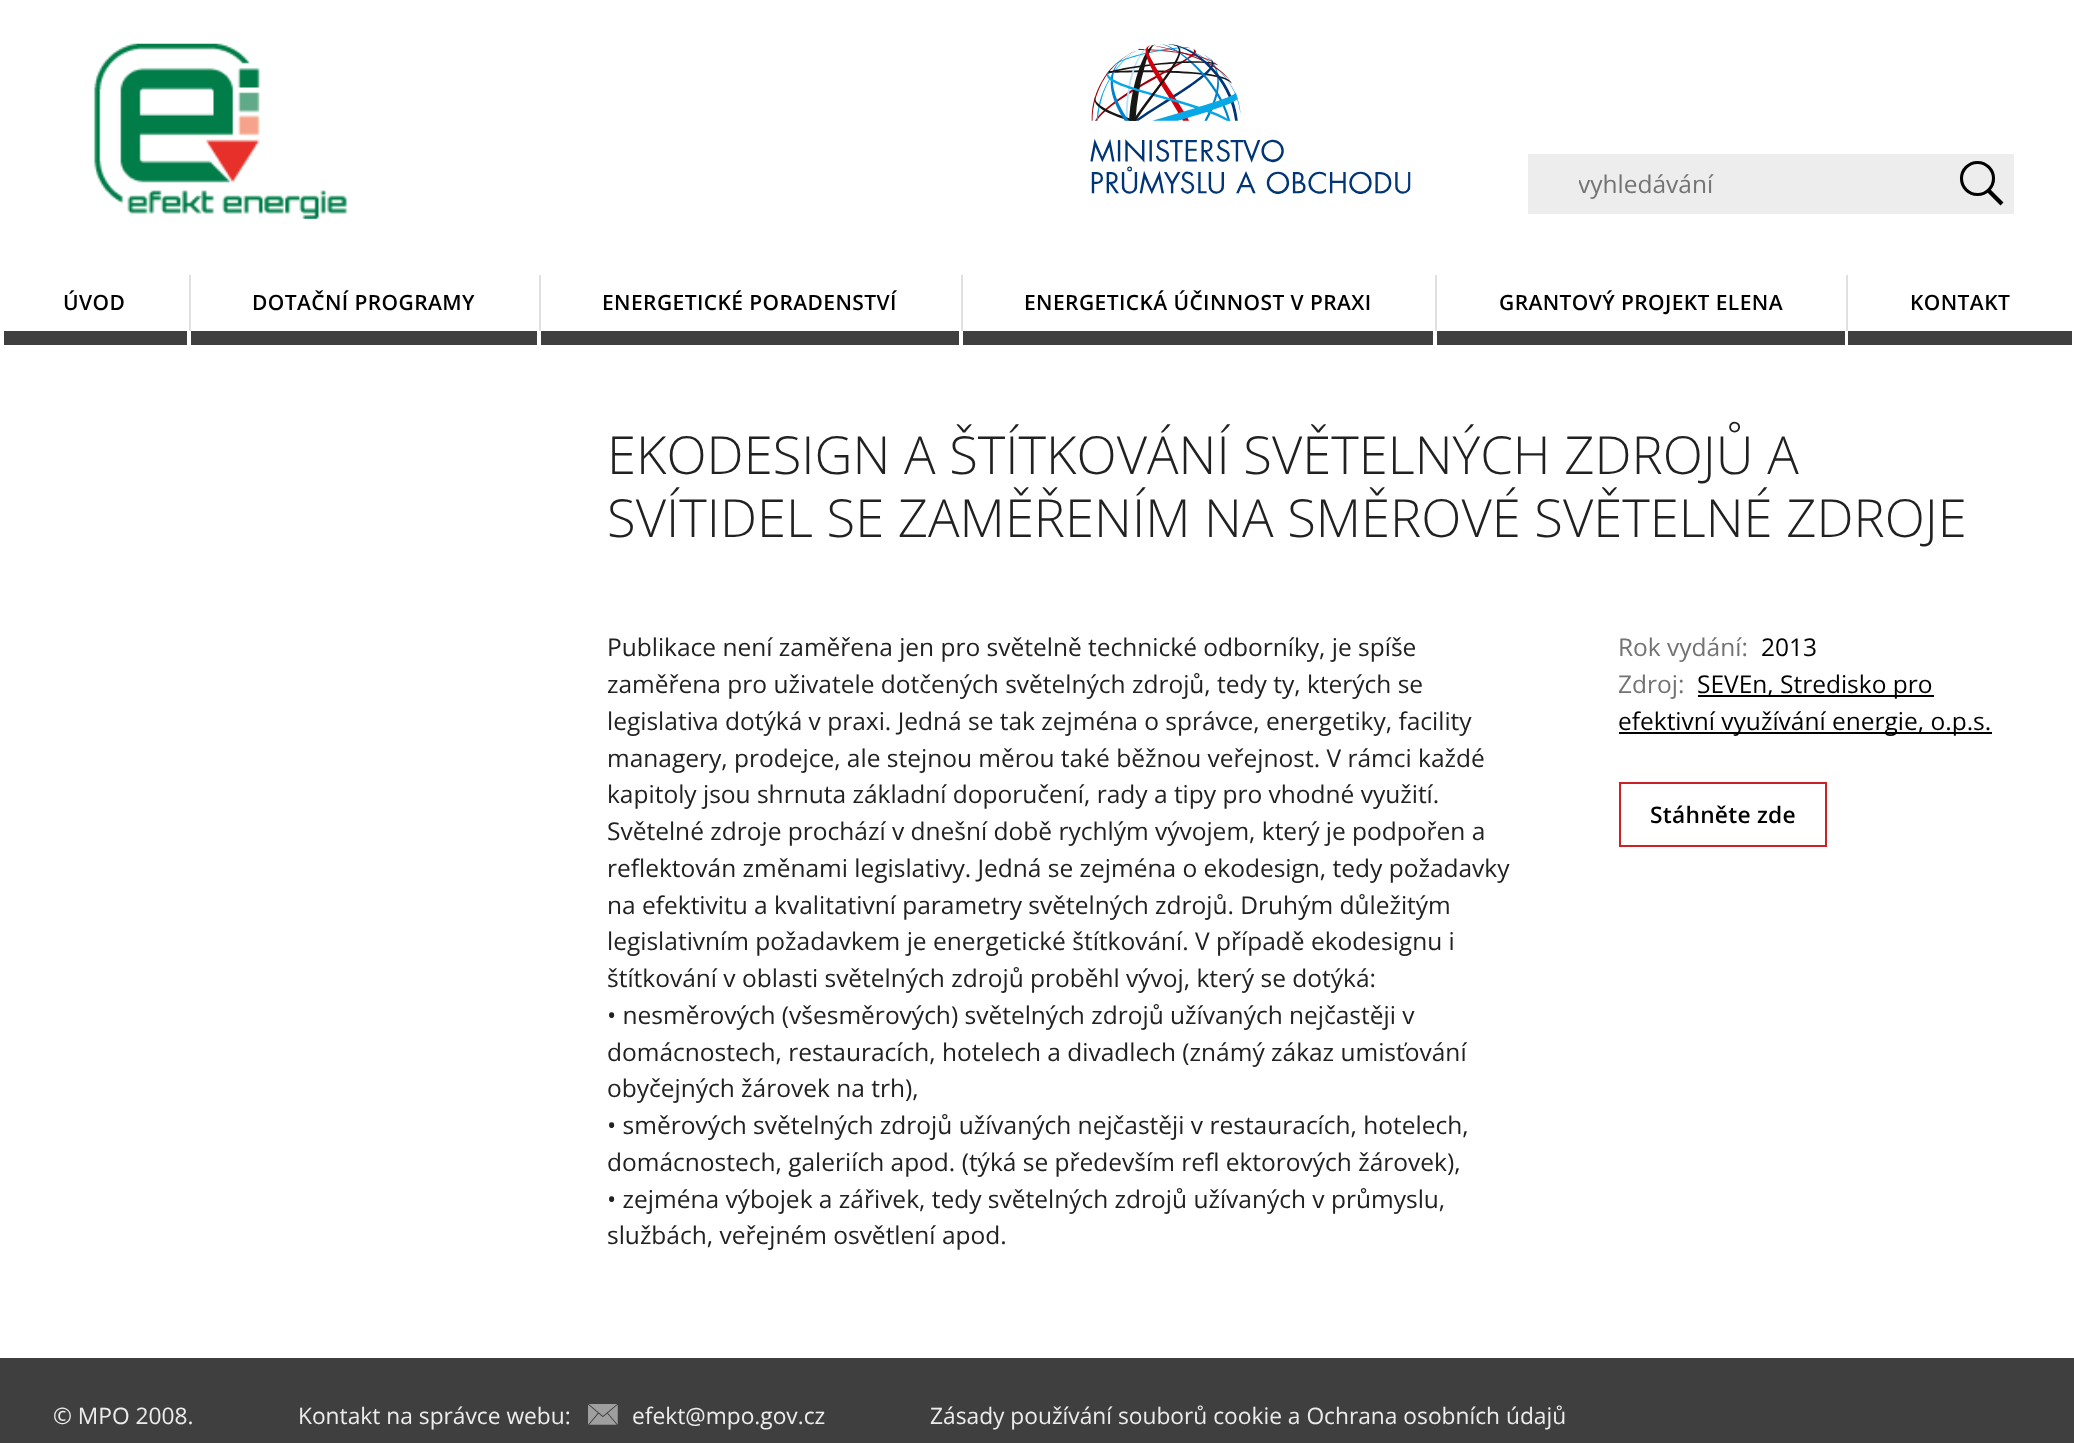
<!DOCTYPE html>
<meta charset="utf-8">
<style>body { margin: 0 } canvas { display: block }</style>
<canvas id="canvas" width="2074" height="1443"></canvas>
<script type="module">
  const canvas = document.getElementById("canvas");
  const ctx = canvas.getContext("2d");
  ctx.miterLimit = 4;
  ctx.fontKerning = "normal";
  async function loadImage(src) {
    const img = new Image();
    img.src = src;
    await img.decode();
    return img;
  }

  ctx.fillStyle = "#ffffff";
  ctx.fillRect(0, 0, 2074, 1443);
  ctx.drawImage(await loadImage("img1.png"), 94, 43, 253, 176);
  ctx.drawImage(await loadImage("img2.png"), 1090, 44, 321, 150);
  ctx.fillStyle = "#ededed";
  ctx.fillRect(1528, 154, 486, 60);
  ctx.save();
  ctx.beginPath();
  ctx.rect(1579, 166, 355, 34);
  ctx.clip();
  ctx.font = "24.5px Open Sans";
  ctx.fillStyle = "#737373";
  ctx.fillText("vyhledávání", 1578, 193);
  ctx.restore();
  ctx.beginPath();
  ctx.arc(1977.5, 178.5, 16, 0, Math.PI * 2);
  ctx.strokeStyle = "#000000";
  ctx.lineWidth = 3.1;
  ctx.stroke();
  ctx.beginPath();
  ctx.moveTo(1989, 191);
  ctx.lineTo(2002, 204);
  ctx.lineWidth = 4.3;
  ctx.stroke();
  ctx.fillStyle = "#3f3f3f";
  ctx.fillRect(4, 331, 183, 14);
  ctx.letterSpacing = "0.4px";
  ctx.font = "600 21px Open Sans";
  ctx.fillStyle = "#000000";
  ctx.fillText("ÚVOD", 63, 310);
  ctx.fillStyle = "#3f3f3f";
  ctx.fillRect(191, 331, 346, 14);
  ctx.fillStyle = "#e0e0e0";
  ctx.fillRect(189, 275, 2, 56);
  ctx.fillStyle = "#000000";
  ctx.fillText("DOTAČNÍ PROGRAMY", 252, 310);
  ctx.fillStyle = "#3f3f3f";
  ctx.fillRect(541, 331, 418, 14);
  ctx.fillStyle = "#e0e0e0";
  ctx.fillRect(539, 275, 2, 56);
  ctx.fillStyle = "#000000";
  ctx.fillText("ENERGETICKÉ PORADENSTVÍ", 602, 310);
  ctx.fillStyle = "#3f3f3f";
  ctx.fillRect(963, 331, 470, 14);
  ctx.fillStyle = "#e0e0e0";
  ctx.fillRect(961, 275, 2, 56);
  ctx.fillStyle = "#000000";
  ctx.fillText("ENERGETICKÁ ÚČINNOST V PRAXI", 1024, 310);
  ctx.fillStyle = "#3f3f3f";
  ctx.fillRect(1437, 331, 408, 14);
  ctx.fillStyle = "#e0e0e0";
  ctx.fillRect(1435, 275, 2, 56);
  ctx.fillStyle = "#000000";
  ctx.fillText("GRANTOVÝ PROJEKT ELENA", 1499, 310);
  ctx.fillStyle = "#3f3f3f";
  ctx.fillRect(1848, 331, 224, 14);
  ctx.fillStyle = "#e0e0e0";
  ctx.fillRect(1846, 275, 2, 56);
  ctx.fillStyle = "#000000";
  ctx.fillText("KONTAKT", 1910, 310);
  ctx.letterSpacing = "0px";
  ctx.font = "300 52.5px Open Sans";
  ctx.fillStyle = "#212121";
  ctx.fillText("EKODESIGN A ŠTÍTKOVÁNÍ SVĚTELNÝCH ZDROJŮ A", 607, 474);
  ctx.fillText("SVÍTIDEL SE ZAMĚŘENÍM NA SMĚROVÉ SVĚTELNÉ ZDROJE", 607, 537);
  ctx.font = "24.5px Open Sans";
  ctx.fillText("Publikace není zaměřena jen pro světelně technické odborníky, je spíše", 607, 656);
  ctx.fillText("zaměřena pro uživatele dotčených světelných zdrojů, tedy ty, kterých se", 607, 693);
  ctx.fillText("legislativa dotýká v praxi. Jedná se tak zejména o správce, energetiky, facility", 607, 730);
  ctx.fillText("managery, prodejce, ale stejnou měrou také běžnou veřejnost. V rámci každé", 607, 767);
  ctx.fillText("kapitoly jsou shrnuta základní doporučení, rady a tipy pro vhodné využití.", 607, 803);
  ctx.fillText("Světelné zdroje prochází v dnešní době rychlým vývojem, který je podpořen a", 607, 840);
  ctx.fillText("reflektován změnami legislativy. Jedná se zejména o ekodesign, tedy požadavky", 607, 877);
  ctx.fillText("na efektivitu a kvalitativní parametry světelných zdrojů. Druhým důležitým", 607, 914);
  ctx.fillText("legislativním požadavkem je energetické štítkování. V případě ekodesignu i", 607, 950);
  ctx.fillText("štítkování v oblasti světelných zdrojů proběhl vývoj, který se dotýká:", 607, 987);
  ctx.fillText("• nesměrových (všesměrových) světelných zdrojů užívaných nejčastěji v", 607, 1024);
  ctx.fillText("domácnostech, restauracích, hotelech a divadlech (známý zákaz umisťování", 607, 1061);
  ctx.fillText("obyčejných žárovek na trh),", 607, 1097);
  ctx.fillText("• směrových světelných zdrojů užívaných nejčastěji v restauracích, hotelech,", 607, 1134);
  ctx.fillText("domácnostech, galeriích apod. (týká se především refl ektorových žárovek),", 607, 1171);
  ctx.fillText("• zejména výbojek a zářivek, tedy světelných zdrojů užívaných v průmyslu,", 607, 1208);
  ctx.fillText("službách, veřejném osvětlení apod.", 607, 1244);
  ctx.fillStyle = "#737373";
  ctx.fillText("Rok vydání:", 1618, 656);
  ctx.fillStyle = "#000000";
  ctx.fillText("2013", 1761, 656);
  ctx.fillStyle = "#737373";
  ctx.fillText("Zdroj:", 1618, 693);
  ctx.fillStyle = "#000000";
  ctx.fillRect(1698, 695, 236, 2);
  ctx.fillText("SEVEn, Stredisko pro", 1697, 693);
  ctx.fillRect(1619, 732, 373, 2);
  ctx.fillText("efektivní využívání energie, o.p.s.", 1618, 730);
  ctx.strokeStyle = "#cc2127";
  ctx.lineWidth = 2;
  ctx.strokeRect(1620, 783, 206, 63);
  ctx.letterSpacing = "0.25px";
  ctx.font = "600 22.75px Open Sans";
  ctx.fillText("Stáhněte zde", 1650, 823);
  ctx.fillStyle = "#3f3f3f";
  ctx.fillRect(0, 1358, 2074, 85);
  ctx.letterSpacing = "0px";
  ctx.font = "22.75px Open Sans";
  ctx.fillStyle = "#ececec";
  ctx.fillText("© MPO 2008.", 53, 1424);
  ctx.fillText("Kontakt na správce webu:", 298, 1424);
  ctx.drawImage(await loadImage("img3.png"), 588, 1404, 30, 21);
  ctx.fillText("efekt@mpo.gov.cz", 632, 1424);
  ctx.fillText("Zásady používání souborů cookie a Ochrana osobních údajů", 930, 1424);
</script>
